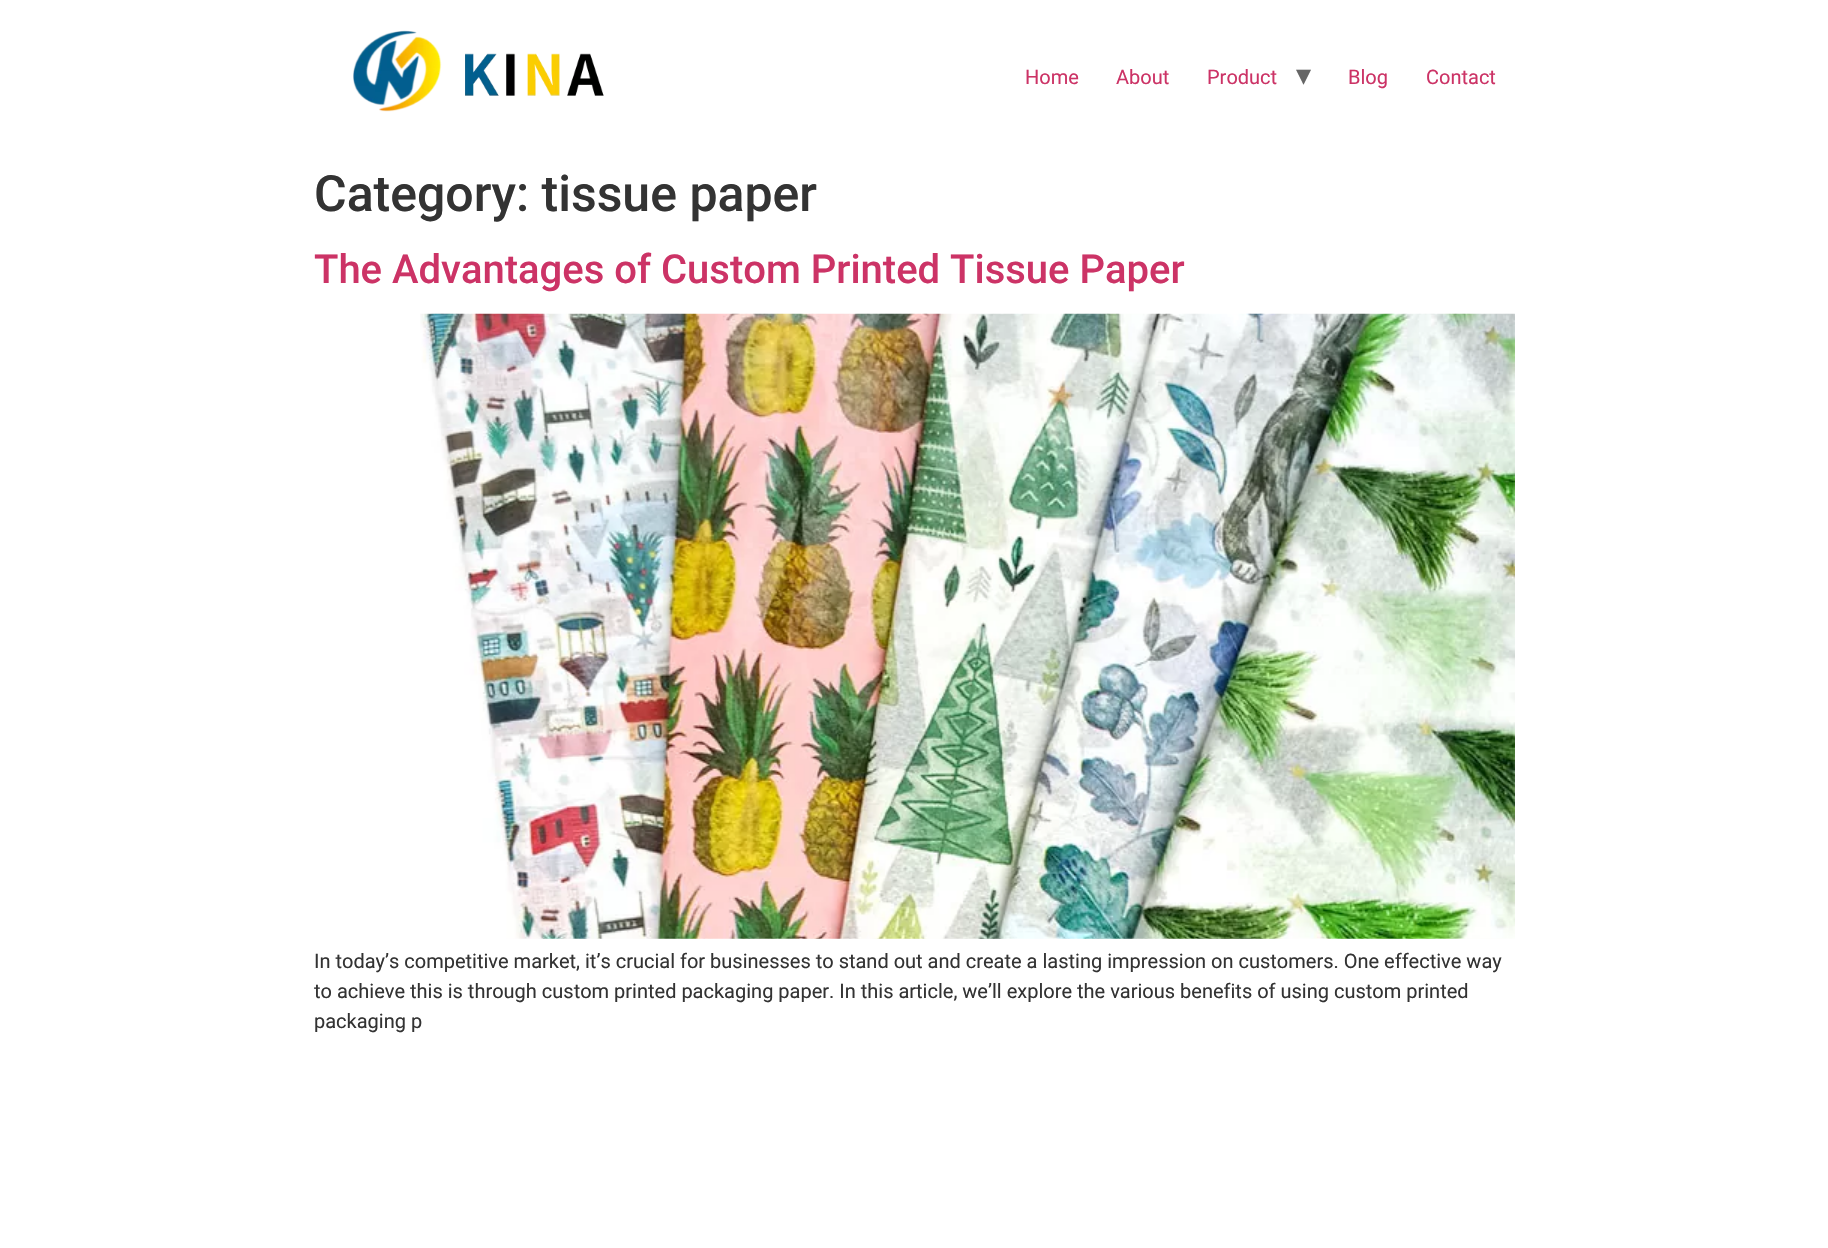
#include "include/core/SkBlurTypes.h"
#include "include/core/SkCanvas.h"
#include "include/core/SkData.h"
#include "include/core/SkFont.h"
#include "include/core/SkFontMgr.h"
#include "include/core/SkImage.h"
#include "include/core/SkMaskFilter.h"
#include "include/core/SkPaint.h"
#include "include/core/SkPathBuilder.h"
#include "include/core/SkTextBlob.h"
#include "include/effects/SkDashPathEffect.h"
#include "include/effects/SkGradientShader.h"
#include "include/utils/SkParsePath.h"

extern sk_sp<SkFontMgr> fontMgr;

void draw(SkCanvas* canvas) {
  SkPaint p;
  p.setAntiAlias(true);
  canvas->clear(SK_ColorWHITE);
  canvas->drawImageRect(SkImages::DeferredFromEncodedData(SkData::MakeFromFileName("images/1.png")), SkRect::MakeLTRB(353, 30, 604, 112), SkSamplingOptions());
  canvas->drawImageRect(SkImages::DeferredFromEncodedData(SkData::MakeFromFileName("images/2.png")), SkRect::MakeLTRB(420, 313, 1515, 939), SkSamplingOptions());
  SkFont font1(fontMgr->matchFamilyStyle("Roboto", SkFontStyle::Normal()), 20);
  font1.setSubpixel(true);
  p.setColor(SkColorSetRGB(204, 51, 102));
  canvas->drawString("Home", 1025, 84, font1, p);
  canvas->drawString("About", 1116, 84, font1, p);
  canvas->drawString("Product", 1207, 84, font1, p);
  SkFont font2(fontMgr->matchFamilyStyle("DejaVu Sans", SkFontStyle::Normal()), 30);
  font2.setSubpixel(true);
  p.setColor(SkColorSetRGB(102, 102, 102));
  canvas->drawString("▾", 1296, 85, font2, p);
  p.setColor(SkColorSetRGB(204, 51, 102));
  canvas->drawString("Blog", 1348, 84, font1, p);
  canvas->drawString("Contact", 1426, 84, font1, p);
  SkFont font3(fontMgr->matchFamilyStyle("Roboto", SkFontStyle(500, SkFontStyle::kNormal_Width, SkFontStyle::kUpright_Slant)), 50);
  font3.setSubpixel(true);
  p.setColor(SkColorSetRGB(51, 51, 51));
  canvas->drawString("Category: tissue paper", 314, 211, font3, p);
  SkFont font4(fontMgr->matchFamilyStyle("Roboto", SkFontStyle(500, SkFontStyle::kNormal_Width, SkFontStyle::kUpright_Slant)), 40);
  font4.setSubpixel(true);
  p.setColor(SkColorSetRGB(204, 51, 102));
  canvas->drawString("The Advantages of Custom Printed Tissue Paper", 314, 283, font4, p);
  p.setColor(SkColorSetRGB(51, 51, 51));
  canvas->drawString("In today’s competitive market, it’s crucial for businesses to stand out and create a lasting impression on customers. One effective way", 314, 968, font1, p);
  canvas->drawString("to achieve this is through custom printed packaging paper. In this article, we’ll explore the various benefits of using custom printed", 314, 998, font1, p);
  canvas->drawString("packaging p", 314, 1028, font1, p);
}
